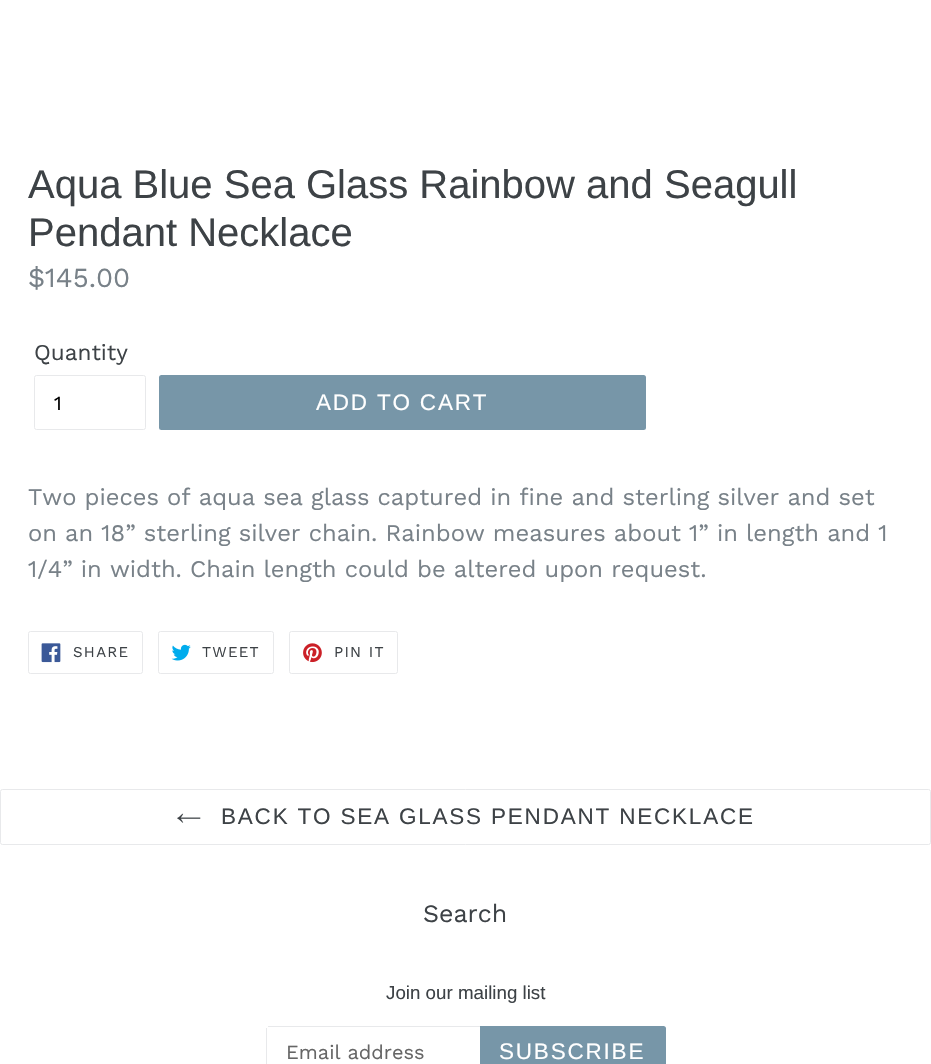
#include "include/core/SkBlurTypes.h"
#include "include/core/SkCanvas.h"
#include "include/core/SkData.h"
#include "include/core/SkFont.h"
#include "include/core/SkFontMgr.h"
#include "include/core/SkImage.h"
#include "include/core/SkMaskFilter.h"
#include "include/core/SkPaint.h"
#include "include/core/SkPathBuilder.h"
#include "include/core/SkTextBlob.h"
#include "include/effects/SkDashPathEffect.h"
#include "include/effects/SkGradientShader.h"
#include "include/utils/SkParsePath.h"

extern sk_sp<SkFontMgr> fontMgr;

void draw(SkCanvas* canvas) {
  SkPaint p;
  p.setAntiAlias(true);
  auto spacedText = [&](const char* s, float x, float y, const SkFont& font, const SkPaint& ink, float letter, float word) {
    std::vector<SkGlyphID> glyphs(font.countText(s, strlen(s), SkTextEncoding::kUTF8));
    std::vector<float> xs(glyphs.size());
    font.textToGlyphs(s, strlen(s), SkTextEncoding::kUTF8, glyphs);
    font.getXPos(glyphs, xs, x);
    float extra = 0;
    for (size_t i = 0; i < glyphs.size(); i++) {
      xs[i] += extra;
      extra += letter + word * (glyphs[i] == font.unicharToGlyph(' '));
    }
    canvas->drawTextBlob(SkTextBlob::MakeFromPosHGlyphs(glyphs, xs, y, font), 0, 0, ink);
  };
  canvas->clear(SK_ColorWHITE);
  p.setStyle(SkPaint::kStroke_Style);
  p.setStrokeWidth(1);
  p.setColor(SkColorSetRGB(232, 233, 235));
  canvas->drawRoundRect(SkRect::MakeLTRB(34.5f, 375.5f, 145.5f, 429.5f), 2, 2, p);
  p.setStyle(SkPaint::kFill_Style);
  p.setColor(SkColorSetRGB(119, 150, 168));
  canvas->drawRoundRect(SkRect::MakeLTRB(159, 375, 646, 430), 2.5f, 2.5f, p);
  p.setStyle(SkPaint::kStroke_Style);
  p.setColor(SkColorSetRGB(232, 233, 235));
  canvas->drawRoundRect(SkRect::MakeLTRB(28.5f, 631.5f, 142.5f, 673.5f), 2, 2, p);
  canvas->drawImageRect(SkImages::DeferredFromEncodedData(SkData::MakeFromFileName("images/1.png")), SkRect::MakeLTRB(41, 643, 61, 663), SkSamplingOptions());
  canvas->drawRoundRect(SkRect::MakeLTRB(158.5f, 631.5f, 273.5f, 673.5f), 2, 2, p);
  canvas->drawImageRect(SkImages::DeferredFromEncodedData(SkData::MakeFromFileName("images/2.png")), SkRect::MakeLTRB(171, 644, 191, 661), SkSamplingOptions());
  canvas->drawRoundRect(SkRect::MakeLTRB(289.5f, 631.5f, 397.5f, 673.5f), 2, 2, p);
  canvas->drawImageRect(SkImages::DeferredFromEncodedData(SkData::MakeFromFileName("images/3.png")), SkRect::MakeLTRB(303, 643, 322, 663), SkSamplingOptions());
  canvas->drawRoundRect(SkRect::MakeLTRB(0.5f, 789.5f, 930.5f, 844.5f), 2, 2, p);
  canvas->drawImageRect(SkImages::DeferredFromEncodedData(SkData::MakeFromFileName("images/4.png")), SkRect::MakeLTRB(177, 813, 201, 823), SkSamplingOptions());
  p.setStyle(SkPaint::kFill_Style);
  canvas->drawRect(SkRect::MakeLTRB(268, 1026, 480, 1027), p);
  canvas->drawRect(SkRect::MakeLTRB(266, 1028, 267, 1064), p);
  p.setColor(SkColorSetRGB(119, 150, 168));
  canvas->drawPath(SkPathBuilder().moveTo(480, 1026).lineTo(663.5f, 1026).cubicTo(665, 1026, 666, 1027, 666, 1028.5f).lineTo(666, 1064.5f).cubicTo(666, 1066, 665, 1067, 663.5f, 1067).lineTo(480, 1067).close().detach(), p);
  SkFont font1(fontMgr->matchFamilyStyle("Liberation Sans", SkFontStyle::Normal()), 40);
  font1.setSubpixel(true);
  p.setColor(SkColorSetRGB(61, 66, 70));
  canvas->drawString("Aqua Blue Sea Glass Rainbow and Seagull", 28, 198, font1, p);
  canvas->drawString("Pendant Necklace", 28, 246, font1, p);
  SkFont font2(fontMgr->matchFamilyStyle("Work Sans", SkFontStyle::Normal()), 27.5f);
  font2.setSubpixel(true);
  p.setColor(SkColorSetRGB(120, 129, 136));
  canvas->drawString("$145.00", 28, 287, font2, p);
  SkFont font3(fontMgr->matchFamilyStyle("Work Sans", SkFontStyle::Normal()), 22.5f);
  font3.setSubpixel(true);
  p.setColor(SkColorSetRGB(61, 66, 70));
  canvas->drawString("Quantity", 34, 360, font3, p);
  SkFont font4(fontMgr->matchFamilyStyle("Work Sans", SkFontStyle::Normal()), 20);
  font4.setSubpixel(true);
  p.setColor(SK_ColorBLACK);
  canvas->drawString("1", 54, 410, font4, p);
  SkFont font5(fontMgr->matchFamilyStyle("Liberation Sans", SkFontStyle::Normal()), 22.5f);
  font5.setSubpixel(true);
  p.setColor(SK_ColorWHITE);
  spacedText("ADD TO CART", 316, 410, font5, p, 1.8f, 0);
  SkFont font6(fontMgr->matchFamilyStyle("Work Sans", SkFontStyle::Normal()), 23.75f);
  font6.setSubpixel(true);
  p.setColor(SkColorSetRGB(120, 129, 136));
  canvas->drawString("Two pieces of aqua sea glass captured in fine and sterling silver and set", 28, 505, font6, p);
  canvas->drawString("on an 18” sterling silver chain. Rainbow measures about 1” in length and 1", 28, 541, font6, p);
  canvas->drawString("1/4” in width. Chain length could be altered upon request.", 28, 577, font6, p);
  SkFont font7(fontMgr->matchFamilyStyle("Work Sans", SkFontStyle::Normal()), 15);
  font7.setSubpixel(true);
  p.setColor(SkColorSetRGB(61, 66, 70));
  spacedText("SHARE", 73, 657, font7, p, 1.25f, 0);
  spacedText("TWEET", 202, 657, font7, p, 1.25f, 0);
  spacedText("PIN IT", 334, 657, font7, p, 1.25f, 0);
  spacedText("BACK TO SEA GLASS PENDANT NECKLACE", 221, 824, font5, p, 1.8f, 0);
  SkFont font8(fontMgr->matchFamilyStyle("Work Sans", SkFontStyle::Normal()), 25);
  font8.setSubpixel(true);
  canvas->drawString("Search", 423, 922, font8, p);
  SkFont font9(fontMgr->matchFamilyStyle("Liberation Sans", SkFontStyle::Normal()), 18.75f);
  font9.setSubpixel(true);
  canvas->drawString("Join our mailing list", 386, 999, font9, p);
  p.setColor(SkColorSetRGB(102, 102, 102));
  canvas->drawString("Email address", 286, 1059, font4, p);
  p.setColor(SK_ColorWHITE);
  spacedText("SUBSCRIBE", 499, 1059, font5, p, 1.8f, 0);
}
